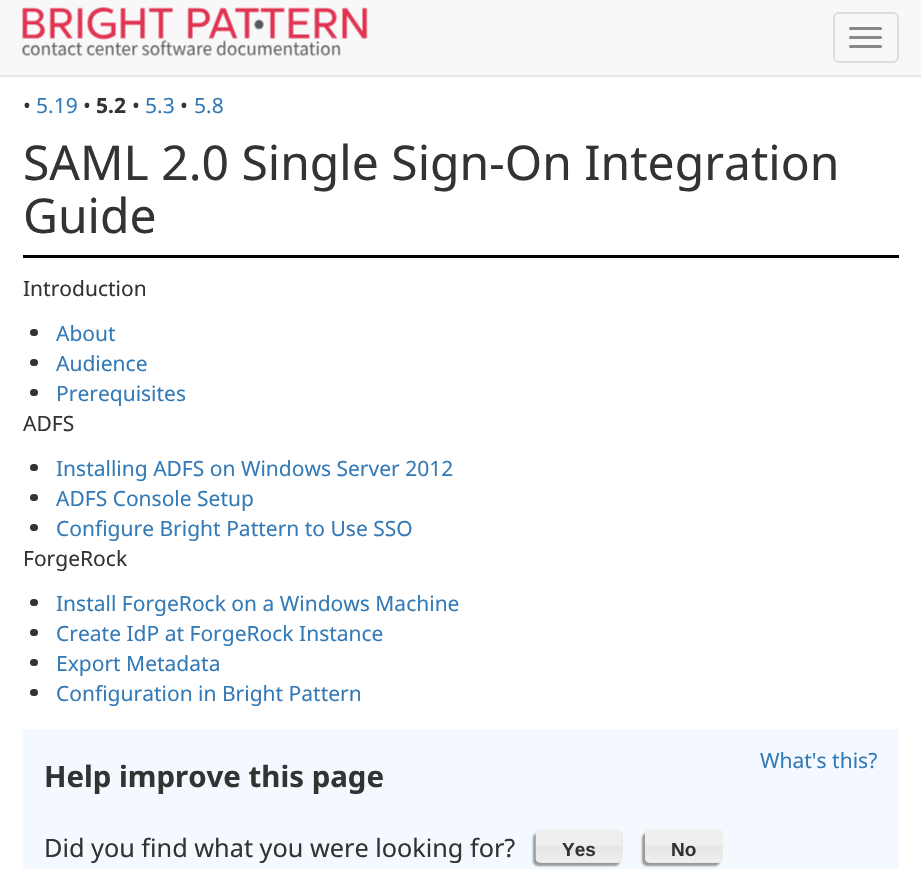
#include "include/core/SkBlurTypes.h"
#include "include/core/SkCanvas.h"
#include "include/core/SkData.h"
#include "include/core/SkFont.h"
#include "include/core/SkFontMgr.h"
#include "include/core/SkImage.h"
#include "include/core/SkMaskFilter.h"
#include "include/core/SkPaint.h"
#include "include/core/SkPathBuilder.h"
#include "include/core/SkTextBlob.h"
#include "include/effects/SkDashPathEffect.h"
#include "include/effects/SkGradientShader.h"
#include "include/utils/SkParsePath.h"

extern sk_sp<SkFontMgr> fontMgr;

void draw(SkCanvas* canvas) {
  SkPaint p;
  p.setAntiAlias(true);
  canvas->clear(SK_ColorWHITE);
  p.setColor(SkColorSetRGB(248, 248, 248));
  canvas->drawRect(SkRect::MakeLTRB(0, 0, 921, 75), p);
  p.setColor(SkColorSetRGB(231, 231, 231));
  canvas->drawRect(SkRect::MakeLTRB(0, 75, 921, 77), p);
  canvas->drawImageRect(SkImages::DeferredFromEncodedData(SkData::MakeFromFileName("images/1.png")), SkRect::MakeLTRB(22, 7, 368, 56), SkSamplingOptions());
  p.setStyle(SkPaint::kStroke_Style);
  p.setStrokeWidth(2);
  p.setColor(SkColorSetRGB(221, 221, 221));
  canvas->drawRoundRect(SkRect::MakeLTRB(834, 13, 898, 62), 5, 5, p);
  p.setStyle(SkPaint::kFill_Style);
  p.setColor(SkColorSetRGB(136, 136, 136));
  canvas->drawRoundRect(SkRect::MakeLTRB(849, 27, 882, 30), 1.5f, 1.5f, p);
  canvas->drawRoundRect(SkRect::MakeLTRB(849, 36, 882, 39), 1.5f, 1.5f, p);
  canvas->drawRoundRect(SkRect::MakeLTRB(849, 45, 882, 48), 1.5f, 1.5f, p);
  p.setColor(SK_ColorBLACK);
  canvas->drawRect(SkRect::MakeLTRB(23, 255, 899, 258), p);
  p.setColor(SkColorSetRGB(51, 51, 51));
  canvas->drawRoundRect(SkRect::MakeLTRB(30, 329, 38, 336), 3.5f, 3.5f, p);
  canvas->drawRoundRect(SkRect::MakeLTRB(30, 359, 38, 366), 3.5f, 3.5f, p);
  canvas->drawRoundRect(SkRect::MakeLTRB(30, 389, 38, 396), 3.5f, 3.5f, p);
  canvas->drawRoundRect(SkRect::MakeLTRB(30, 464, 38, 471), 3.5f, 3.5f, p);
  canvas->drawRoundRect(SkRect::MakeLTRB(30, 494, 38, 501), 3.5f, 3.5f, p);
  canvas->drawRoundRect(SkRect::MakeLTRB(30, 524, 38, 531), 3.5f, 3.5f, p);
  canvas->drawRoundRect(SkRect::MakeLTRB(30, 599, 38, 606), 3.5f, 3.5f, p);
  canvas->drawRoundRect(SkRect::MakeLTRB(30, 629, 38, 636), 3.5f, 3.5f, p);
  canvas->drawRoundRect(SkRect::MakeLTRB(30, 659, 38, 666), 3.5f, 3.5f, p);
  canvas->drawRoundRect(SkRect::MakeLTRB(30, 689, 38, 696), 3.5f, 3.5f, p);
  p.setColor(SkColorSetRGB(243, 249, 255));
  canvas->drawRect(SkRect::MakeLTRB(23, 729, 899, 869), p);
  p.setColor(SkColorSetRGB(153, 153, 153));
  p.setMaskFilter(SkMaskFilter::MakeBlur(kNormal_SkBlurStyle, 1));
  canvas->drawRoundRect(SkRect::MakeLTRB(533, 833, 620, 866), 5, 5, p);
  p.setMaskFilter(nullptr);
  p.setColor(SkColorSetRGB(230, 230, 230));
  canvas->drawRoundRect(SkRect::MakeLTRB(536, 830, 623, 863), 5, 5, p);
  canvas->drawImageRect(SkImages::DeferredFromEncodedData(SkData::MakeFromFileName("images/2.png")), SkRect::MakeLTRB(535, 829, 622, 863), SkSamplingOptions());
  p.setColor(SkColorSetRGB(153, 153, 153));
  p.setMaskFilter(SkMaskFilter::MakeBlur(kNormal_SkBlurStyle, 1));
  canvas->drawRoundRect(SkRect::MakeLTRB(642, 833, 720, 866), 5, 5, p);
  p.setMaskFilter(nullptr);
  p.setColor(SkColorSetRGB(230, 230, 230));
  canvas->drawRoundRect(SkRect::MakeLTRB(645, 830, 723, 863), 5, 5, p);
  canvas->drawImageRect(SkImages::DeferredFromEncodedData(SkData::MakeFromFileName("images/3.png")), SkRect::MakeLTRB(645, 829, 723, 863), SkSamplingOptions());
  SkFont font1(fontMgr->matchFamilyStyle("Noto Sans", SkFontStyle::Normal()), 21);
  font1.setSubpixel(true);
  p.setColor(SkColorSetRGB(51, 51, 51));
  canvas->drawString("•", 23, 113, font1, p);
  p.setColor(SkColorSetRGB(51, 122, 183));
  canvas->drawString("5.19", 36, 113, font1, p);
  p.setColor(SkColorSetRGB(51, 51, 51));
  canvas->drawString("•", 83, 113, font1, p);
  SkFont font2(fontMgr->matchFamilyStyle("Noto Sans", SkFontStyle::Bold()), 21);
  font2.setSubpixel(true);
  canvas->drawString("5.2", 96, 113, font2, p);
  canvas->drawString("•", 132, 113, font1, p);
  p.setColor(SkColorSetRGB(51, 122, 183));
  canvas->drawString("5.3", 145, 113, font1, p);
  p.setColor(SkColorSetRGB(51, 51, 51));
  canvas->drawString("•", 180, 113, font1, p);
  p.setColor(SkColorSetRGB(51, 122, 183));
  canvas->drawString("5.8", 194, 113, font1, p);
  SkFont font3(fontMgr->matchFamilyStyle("Noto Sans", SkFontStyle::Normal()), 48);
  font3.setSubpixel(true);
  p.setColor(SkColorSetRGB(51, 51, 51));
  canvas->drawString("SAML 2.0 Single Sign-On Integration", 23, 180, font3, p);
  canvas->drawString("Guide", 23, 233, font3, p);
  canvas->drawString("Introduction", 23, 296, font1, p);
  p.setColor(SkColorSetRGB(51, 122, 183));
  canvas->drawString("About", 56, 341, font1, p);
  canvas->drawString("Audience", 56, 371, font1, p);
  canvas->drawString("Prerequisites", 56, 401, font1, p);
  p.setColor(SkColorSetRGB(51, 51, 51));
  canvas->drawString("ADFS", 23, 431, font1, p);
  p.setColor(SkColorSetRGB(51, 122, 183));
  canvas->drawString("Installing ADFS on Windows Server 2012", 56, 476, font1, p);
  canvas->drawString("ADFS Console Setup", 56, 506, font1, p);
  canvas->drawString("Configure Bright Pattern to Use SSO", 56, 536, font1, p);
  p.setColor(SkColorSetRGB(51, 51, 51));
  canvas->drawString("ForgeRock", 23, 566, font1, p);
  p.setColor(SkColorSetRGB(51, 122, 183));
  canvas->drawString("Install ForgeRock on a Windows Machine", 56, 611, font1, p);
  canvas->drawString("Create IdP at ForgeRock Instance", 56, 641, font1, p);
  canvas->drawString("Export Metadata", 56, 671, font1, p);
  canvas->drawString("Configuration in Bright Pattern", 56, 701, font1, p);
  canvas->drawString("What's this?", 760, 768, font1, p);
  SkFont font4(fontMgr->matchFamilyStyle("Noto Sans", SkFontStyle::Bold()), 29.4f);
  font4.setSubpixel(true);
  p.setColor(SkColorSetRGB(51, 51, 51));
  canvas->drawString("Help improve this page", 44, 787, font4, p);
  SkFont font5(fontMgr->matchFamilyStyle("Noto Sans", SkFontStyle::Normal()), 25.25f);
  font5.setSubpixel(true);
  canvas->drawString("Did you find what you were looking for?", 44, 857, font5, p);
  SkFont font6(fontMgr->matchFamilyStyle("Liberation Sans", SkFontStyle::Bold()), 19);
  font6.setSubpixel(true);
  canvas->drawString("Yes", 562, 856, font6, p);
  canvas->drawString("No", 671, 856, font6, p);
}
